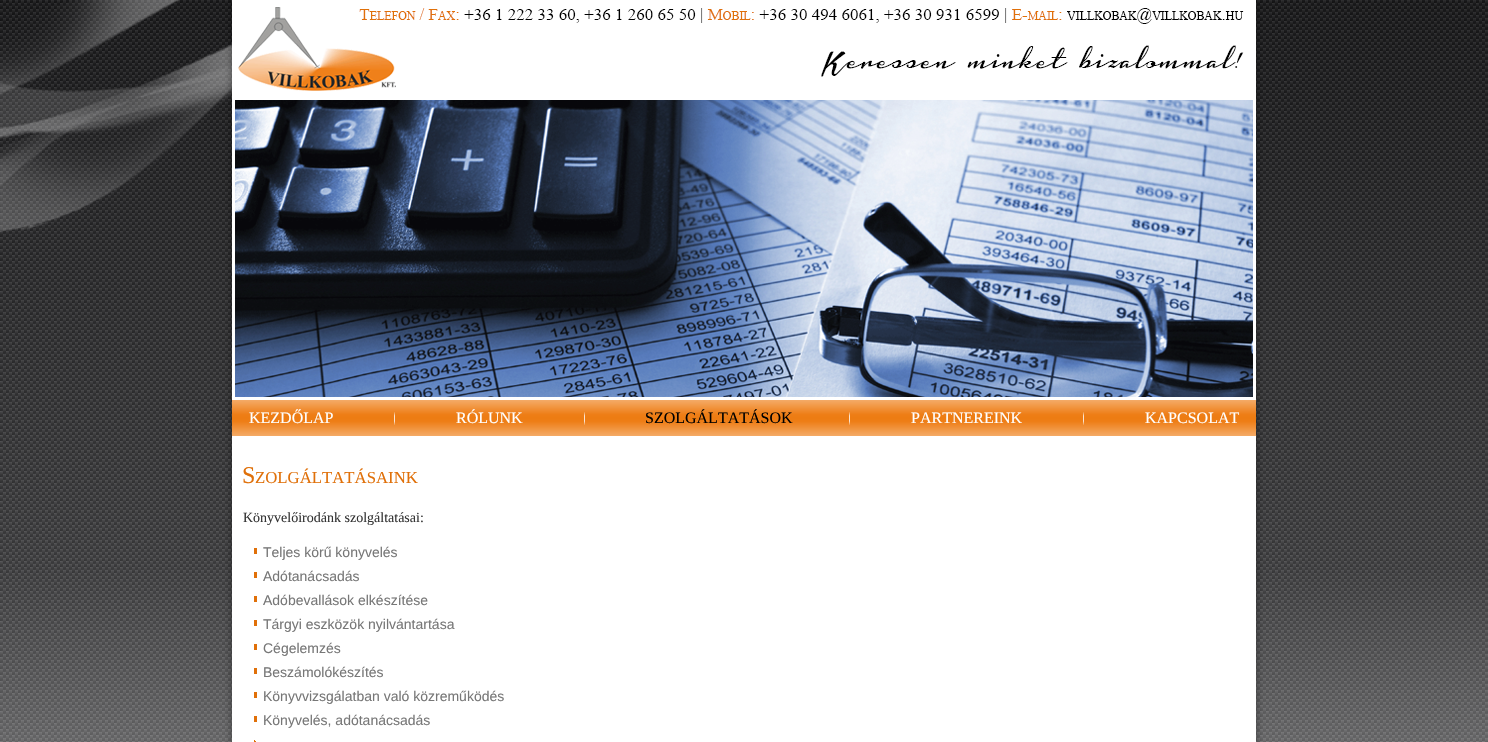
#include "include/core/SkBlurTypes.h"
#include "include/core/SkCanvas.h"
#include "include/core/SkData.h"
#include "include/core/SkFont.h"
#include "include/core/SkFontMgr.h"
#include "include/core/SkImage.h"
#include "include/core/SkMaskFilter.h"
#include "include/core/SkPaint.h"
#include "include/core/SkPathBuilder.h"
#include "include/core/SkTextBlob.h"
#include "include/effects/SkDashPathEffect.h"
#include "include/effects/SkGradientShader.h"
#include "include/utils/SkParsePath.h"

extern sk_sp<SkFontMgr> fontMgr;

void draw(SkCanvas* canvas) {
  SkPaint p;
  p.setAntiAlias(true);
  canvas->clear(SK_ColorWHITE);
  canvas->drawImageRect(SkImages::DeferredFromEncodedData(SkData::MakeFromFileName("images/1.png")), SkRect::MakeLTRB(0, 0, 1488, 742), SkSamplingOptions());
  p.setColor(SkColorSetARGB(51, 0, 0, 0));
  p.setMaskFilter(SkMaskFilter::MakeBlur(kNormal_SkBlurStyle, 2.5f));
  canvas->drawRect(SkRect::MakeLTRB(229, -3, 1259, 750), p);
  p.setMaskFilter(nullptr);
  p.setColor(SK_ColorWHITE);
  canvas->drawRect(SkRect::MakeLTRB(232, 0, 1256, 742), p);
  canvas->drawImageRect(SkImages::DeferredFromEncodedData(SkData::MakeFromFileName("images/2.png")), SkRect::MakeLTRB(235, 7, 1253, 397), SkSamplingOptions());
  {
    const SkColor colors[] = {SkColorSetRGB(244, 171, 103), SkColorSetRGB(238, 126, 23), SkColorSetRGB(237, 124, 18), SkColorSetRGB(238, 126, 23), SkColorSetRGB(244, 171, 103)};
    const float stops[] = {0, 0.4f, 0.5f, 0.6f, 1};
    const SkPoint ends[] = {{744, 400}, {744, 436}};
    p.setShader(SkGradientShader::MakeLinear(ends, colors, stops, 5, SkTileMode::kClamp));
    p.setAlpha(255);
  }
  canvas->drawRect(SkRect::MakeLTRB(232, 400, 1256, 436), p);
  canvas->drawImageRect(SkImages::DeferredFromEncodedData(SkData::MakeFromFileName("images/3.png")), SkRect::MakeLTRB(394, 412, 395, 425), SkSamplingOptions());
  canvas->drawImageRect(SkImages::DeferredFromEncodedData(SkData::MakeFromFileName("images/3.png")), SkRect::MakeLTRB(584, 412, 585, 425), SkSamplingOptions());
  canvas->drawImageRect(SkImages::DeferredFromEncodedData(SkData::MakeFromFileName("images/3.png")), SkRect::MakeLTRB(849, 412, 850, 425), SkSamplingOptions());
  canvas->drawImageRect(SkImages::DeferredFromEncodedData(SkData::MakeFromFileName("images/3.png")), SkRect::MakeLTRB(1083, 412, 1084, 425), SkSamplingOptions());
  p.setShader(nullptr);
  p.setColor(SkColorSetRGB(224, 112, 9));
  canvas->drawRect(SkRect::MakeLTRB(254, 548, 257, 554), p);
  canvas->drawRect(SkRect::MakeLTRB(254, 572, 257, 578), p);
  canvas->drawRect(SkRect::MakeLTRB(254, 596, 257, 602), p);
  canvas->drawRect(SkRect::MakeLTRB(254, 620, 257, 626), p);
  canvas->drawRect(SkRect::MakeLTRB(254, 644, 257, 650), p);
  canvas->drawRect(SkRect::MakeLTRB(254, 668, 257, 674), p);
  canvas->drawRect(SkRect::MakeLTRB(254, 692, 257, 698), p);
  canvas->drawRect(SkRect::MakeLTRB(254, 716, 257, 722), p);
  canvas->drawImageRect(SkImages::DeferredFromEncodedData(SkData::MakeFromFileName("images/4.png")), SkRect::MakeLTRB(254, 740, 256, 742), SkSamplingOptions());
  SkFont font1(fontMgr->matchFamilyStyle("Liberation Serif", SkFontStyle::Normal()), 16);
  font1.setSubpixel(true);
  p.setColor(SK_ColorWHITE);
  canvas->drawString("KEZDŐLAP", 249, 423, font1, p);
  canvas->drawString("RÓLUNK", 456, 423, font1, p);
  p.setColor(SK_ColorBLACK);
  canvas->drawString("SZOLGÁLTATÁSOK", 645, 423, font1, p);
  p.setColor(SK_ColorWHITE);
  canvas->drawString("PARTNEREINK", 911, 423, font1, p);
  canvas->drawString("KAPCSOLAT", 1145, 423, font1, p);
  SkFont font2(fontMgr->matchFamilyStyle("Liberation Serif", SkFontStyle::Normal()), 24);
  font2.setSubpixel(true);
  p.setColor(SkColorSetRGB(224, 112, 9));
  canvas->drawString("S", 242, 483, font2, p);
  SkFont font3(fontMgr->matchFamilyStyle("Liberation Serif", SkFontStyle::Normal()), 16.75f);
  font3.setSubpixel(true);
  canvas->drawString("ZOLGÁLTATÁSAINK", 255, 483, font3, p);
  SkFont font4(fontMgr->matchFamilyStyle("Liberation Serif", SkFontStyle::Normal()), 14);
  font4.setSubpixel(true);
  p.setColor(SkColorSetRGB(51, 51, 51));
  canvas->drawString("Könyvelőirodánk szolgáltatásai:", 243, 522, font4, p);
  SkFont font5(fontMgr->matchFamilyStyle("Liberation Sans", SkFontStyle::Normal()), 14);
  font5.setSubpixel(true);
  p.setColor(SkColorSetRGB(119, 119, 119));
  canvas->drawString("Teljes körű könyvelés", 263, 557, font5, p);
  canvas->drawString("Adótanácsadás", 263, 581, font5, p);
  canvas->drawString("Adóbevallások elkészítése", 263, 605, font5, p);
  canvas->drawString("Tárgyi eszközök nyilvántartása", 263, 629, font5, p);
  canvas->drawString("Cégelemzés", 263, 653, font5, p);
  canvas->drawString("Beszámolókészítés", 263, 677, font5, p);
  canvas->drawString("Könyvvizsgálatban való közreműködés", 263, 701, font5, p);
  canvas->drawString("Könyvelés, adótanácsadás", 263, 725, font5, p);
}
